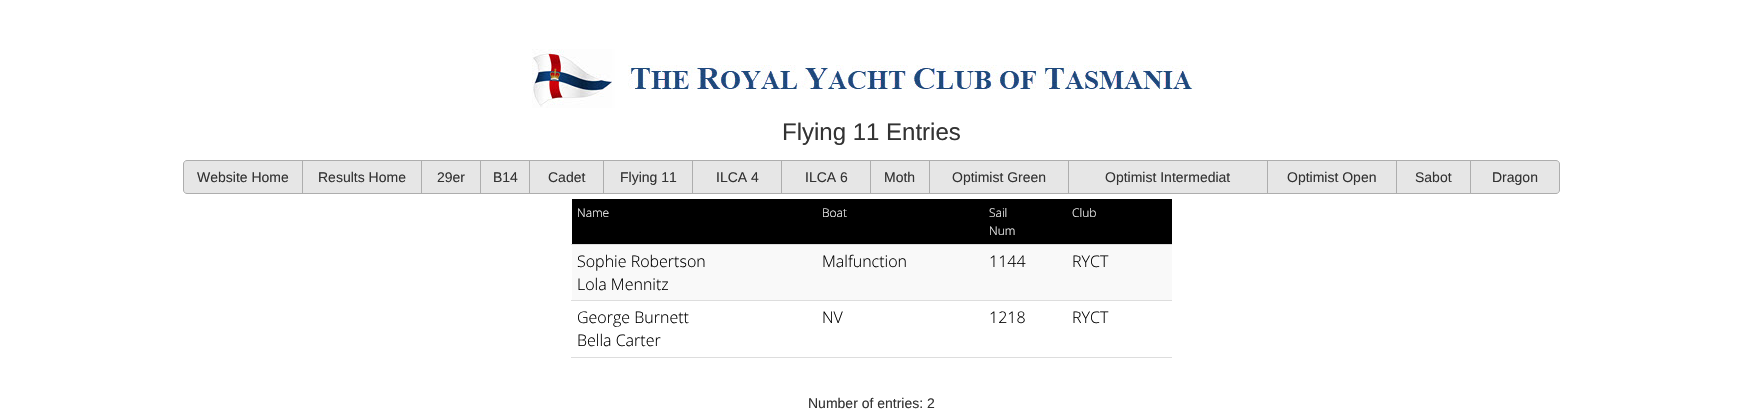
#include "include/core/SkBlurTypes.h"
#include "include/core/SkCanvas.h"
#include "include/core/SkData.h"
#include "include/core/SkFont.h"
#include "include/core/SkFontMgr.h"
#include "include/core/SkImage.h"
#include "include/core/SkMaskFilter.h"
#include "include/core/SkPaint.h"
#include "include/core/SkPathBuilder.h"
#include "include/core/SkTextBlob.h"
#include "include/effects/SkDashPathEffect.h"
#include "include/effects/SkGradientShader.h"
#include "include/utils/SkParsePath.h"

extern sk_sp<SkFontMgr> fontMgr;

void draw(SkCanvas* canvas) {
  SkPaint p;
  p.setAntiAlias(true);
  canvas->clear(SK_ColorWHITE);
  canvas->drawImageRect(SkImages::DeferredFromEncodedData(SkData::MakeFromFileName("images/1.png")), SkRect::MakeLTRB(532, 49, 1196, 108), SkSamplingOptions());
  p.setColor(SkColorSetRGB(230, 230, 230));
  canvas->drawPath(SkPathBuilder().moveTo(187, 160.5f).lineTo(302.5f, 160.5f).lineTo(302.5f, 193.5f).lineTo(187, 193.5f).cubicTo(185, 193.5f, 183.5f, 192, 183.5f, 190).lineTo(183.5f, 164).cubicTo(183.5f, 162, 185, 160.5f, 187, 160.5f).close().detach(), p);
  p.setStyle(SkPaint::kStroke_Style);
  p.setStrokeWidth(1);
  p.setColor(SkColorSetRGB(173, 173, 173));
  canvas->drawPath(SkPathBuilder().moveTo(187, 160.5f).lineTo(302.5f, 160.5f).lineTo(302.5f, 193.5f).lineTo(187, 193.5f).cubicTo(185, 193.5f, 183.5f, 192, 183.5f, 190).lineTo(183.5f, 164).cubicTo(183.5f, 162, 185, 160.5f, 187, 160.5f).close().detach(), p);
  p.setStyle(SkPaint::kFill_Style);
  p.setColor(SkColorSetRGB(230, 230, 230));
  canvas->drawRect(SkRect::MakeLTRB(302.5f, 160.5f, 421.5f, 193.5f), p);
  p.setStyle(SkPaint::kStroke_Style);
  p.setColor(SkColorSetRGB(173, 173, 173));
  canvas->drawRect(SkRect::MakeLTRB(302.5f, 160.5f, 421.5f, 193.5f), p);
  p.setStyle(SkPaint::kFill_Style);
  p.setColor(SkColorSetRGB(230, 230, 230));
  canvas->drawRect(SkRect::MakeLTRB(421.5f, 160.5f, 480.5f, 193.5f), p);
  p.setStyle(SkPaint::kStroke_Style);
  p.setColor(SkColorSetRGB(173, 173, 173));
  canvas->drawRect(SkRect::MakeLTRB(421.5f, 160.5f, 480.5f, 193.5f), p);
  p.setStyle(SkPaint::kFill_Style);
  p.setColor(SkColorSetRGB(230, 230, 230));
  canvas->drawRect(SkRect::MakeLTRB(480.5f, 160.5f, 529.5f, 193.5f), p);
  p.setStyle(SkPaint::kStroke_Style);
  p.setColor(SkColorSetRGB(173, 173, 173));
  canvas->drawRect(SkRect::MakeLTRB(480.5f, 160.5f, 529.5f, 193.5f), p);
  p.setStyle(SkPaint::kFill_Style);
  p.setColor(SkColorSetRGB(230, 230, 230));
  canvas->drawRect(SkRect::MakeLTRB(529.5f, 160.5f, 603.5f, 193.5f), p);
  p.setStyle(SkPaint::kStroke_Style);
  p.setColor(SkColorSetRGB(173, 173, 173));
  canvas->drawRect(SkRect::MakeLTRB(529.5f, 160.5f, 603.5f, 193.5f), p);
  p.setStyle(SkPaint::kFill_Style);
  p.setColor(SkColorSetRGB(230, 230, 230));
  canvas->drawRect(SkRect::MakeLTRB(603.5f, 160.5f, 692.5f, 193.5f), p);
  p.setStyle(SkPaint::kStroke_Style);
  p.setColor(SkColorSetRGB(173, 173, 173));
  canvas->drawRect(SkRect::MakeLTRB(603.5f, 160.5f, 692.5f, 193.5f), p);
  p.setStyle(SkPaint::kFill_Style);
  p.setColor(SkColorSetRGB(230, 230, 230));
  canvas->drawRect(SkRect::MakeLTRB(692.5f, 160.5f, 781.5f, 193.5f), p);
  p.setStyle(SkPaint::kStroke_Style);
  p.setColor(SkColorSetRGB(173, 173, 173));
  canvas->drawRect(SkRect::MakeLTRB(692.5f, 160.5f, 781.5f, 193.5f), p);
  p.setStyle(SkPaint::kFill_Style);
  p.setColor(SkColorSetRGB(230, 230, 230));
  canvas->drawRect(SkRect::MakeLTRB(781.5f, 160.5f, 870.5f, 193.5f), p);
  p.setStyle(SkPaint::kStroke_Style);
  p.setColor(SkColorSetRGB(173, 173, 173));
  canvas->drawRect(SkRect::MakeLTRB(781.5f, 160.5f, 870.5f, 193.5f), p);
  p.setStyle(SkPaint::kFill_Style);
  p.setColor(SkColorSetRGB(230, 230, 230));
  canvas->drawRect(SkRect::MakeLTRB(870.5f, 160.5f, 929.5f, 193.5f), p);
  p.setStyle(SkPaint::kStroke_Style);
  p.setColor(SkColorSetRGB(173, 173, 173));
  canvas->drawRect(SkRect::MakeLTRB(870.5f, 160.5f, 929.5f, 193.5f), p);
  p.setStyle(SkPaint::kFill_Style);
  p.setColor(SkColorSetRGB(230, 230, 230));
  canvas->drawRect(SkRect::MakeLTRB(929.5f, 160.5f, 1068.5f, 193.5f), p);
  p.setStyle(SkPaint::kStroke_Style);
  p.setColor(SkColorSetRGB(173, 173, 173));
  canvas->drawRect(SkRect::MakeLTRB(929.5f, 160.5f, 1068.5f, 193.5f), p);
  p.setStyle(SkPaint::kFill_Style);
  p.setColor(SkColorSetRGB(230, 230, 230));
  canvas->drawRect(SkRect::MakeLTRB(1068.5f, 160.5f, 1267.5f, 193.5f), p);
  p.setStyle(SkPaint::kStroke_Style);
  p.setColor(SkColorSetRGB(173, 173, 173));
  canvas->drawRect(SkRect::MakeLTRB(1068.5f, 160.5f, 1267.5f, 193.5f), p);
  p.setStyle(SkPaint::kFill_Style);
  p.setColor(SkColorSetRGB(230, 230, 230));
  canvas->drawRect(SkRect::MakeLTRB(1267.5f, 160.5f, 1396.5f, 193.5f), p);
  p.setStyle(SkPaint::kStroke_Style);
  p.setColor(SkColorSetRGB(173, 173, 173));
  canvas->drawRect(SkRect::MakeLTRB(1267.5f, 160.5f, 1396.5f, 193.5f), p);
  p.setStyle(SkPaint::kFill_Style);
  p.setColor(SkColorSetRGB(230, 230, 230));
  canvas->drawRect(SkRect::MakeLTRB(1396.5f, 160.5f, 1470.5f, 193.5f), p);
  p.setStyle(SkPaint::kStroke_Style);
  p.setColor(SkColorSetRGB(173, 173, 173));
  canvas->drawRect(SkRect::MakeLTRB(1396.5f, 160.5f, 1470.5f, 193.5f), p);
  p.setStyle(SkPaint::kFill_Style);
  p.setColor(SkColorSetRGB(230, 230, 230));
  canvas->drawPath(SkPathBuilder().moveTo(1470.5f, 160.5f).lineTo(1556, 160.5f).cubicTo(1558, 160.5f, 1559.5f, 162, 1559.5f, 164).lineTo(1559.5f, 190).cubicTo(1559.5f, 192, 1558, 193.5f, 1556, 193.5f).lineTo(1470.5f, 193.5f).close().detach(), p);
  p.setStyle(SkPaint::kStroke_Style);
  p.setColor(SkColorSetRGB(173, 173, 173));
  canvas->drawPath(SkPathBuilder().moveTo(1470.5f, 160.5f).lineTo(1556, 160.5f).cubicTo(1558, 160.5f, 1559.5f, 162, 1559.5f, 164).lineTo(1559.5f, 190).cubicTo(1559.5f, 192, 1558, 193.5f, 1556, 193.5f).lineTo(1470.5f, 193.5f).close().detach(), p);
  p.setStyle(SkPaint::kFill_Style);
  p.setColor(SK_ColorBLACK);
  canvas->drawRect(SkRect::MakeLTRB(572, 199, 1172, 244), p);
  p.setColor(SkColorSetRGB(249, 249, 249));
  canvas->drawRect(SkRect::MakeLTRB(572, 245, 1172, 300), p);
  p.setColor(SkColorSetRGB(221, 221, 221));
  canvas->drawRect(SkRect::MakeLTRB(571, 244, 1172, 245), p);
  canvas->drawRect(SkRect::MakeLTRB(571, 300, 1172, 301), p);
  canvas->drawRect(SkRect::MakeLTRB(571, 357, 1172, 358), p);
  SkFont font1(fontMgr->matchFamilyStyle("Liberation Sans", SkFontStyle::Normal()), 24);
  font1.setSubpixel(true);
  p.setColor(SkColorSetRGB(51, 51, 51));
  canvas->drawString("Flying 11 Entries", 782, 140, font1, p);
  SkFont font2(fontMgr->matchFamilyStyle("Liberation Sans", SkFontStyle::Normal()), 14);
  font2.setSubpixel(true);
  canvas->drawString("Website Home", 197, 182, font2, p);
  canvas->drawString("Results Home", 318, 182, font2, p);
  canvas->drawString("29er", 437, 182, font2, p);
  canvas->drawString("B14", 493, 182, font2, p);
  canvas->drawString("Cadet", 548, 182, font2, p);
  canvas->drawString("Flying 11", 620, 182, font2, p);
  canvas->drawString("ILCA 4", 716, 182, font2, p);
  canvas->drawString("ILCA 6", 805, 182, font2, p);
  canvas->drawString("Moth", 884, 182, font2, p);
  canvas->drawString("Optimist Green", 952, 182, font2, p);
  canvas->drawString("Optimist Intermediat", 1105, 182, font2, p);
  canvas->drawString("Optimist Open", 1287, 182, font2, p);
  canvas->drawString("Sabot", 1415, 182, font2, p);
  canvas->drawString("Dragon", 1492, 182, font2, p);
  SkFont font3(fontMgr->matchFamilyStyle("Open Sans", SkFontStyle(300, SkFontStyle::kNormal_Width, SkFontStyle::kUpright_Slant)), 12);
  font3.setSubpixel(true);
  p.setColor(SK_ColorWHITE);
  canvas->drawString("Name", 577, 217, font3, p);
  canvas->drawString("Boat", 822, 217, font3, p);
  canvas->drawString("Sail", 989, 217, font3, p);
  canvas->drawString("Num", 989, 235, font3, p);
  canvas->drawString("Club", 1072, 217, font3, p);
  SkFont font4(fontMgr->matchFamilyStyle("Open Sans", SkFontStyle(300, SkFontStyle::kNormal_Width, SkFontStyle::kUpright_Slant)), 16);
  font4.setSubpixel(true);
  p.setColor(SK_ColorBLACK);
  canvas->drawString("Sophie Robertson", 577, 267, font4, p);
  canvas->drawString("Lola Mennitz", 577, 290, font4, p);
  canvas->drawString("Malfunction", 822, 267, font4, p);
  canvas->drawString("1144", 989, 267, font4, p);
  canvas->drawString("RYCT", 1072, 267, font4, p);
  canvas->drawString("George Burnett", 577, 323, font4, p);
  canvas->drawString("Bella Carter", 577, 346, font4, p);
  canvas->drawString("NV", 822, 323, font4, p);
  canvas->drawString("1218", 989, 323, font4, p);
  canvas->drawString("RYCT", 1072, 323, font4, p);
  p.setColor(SkColorSetRGB(51, 51, 51));
  canvas->drawString("Number of entries: 2", 808, 408, font2, p);
}
